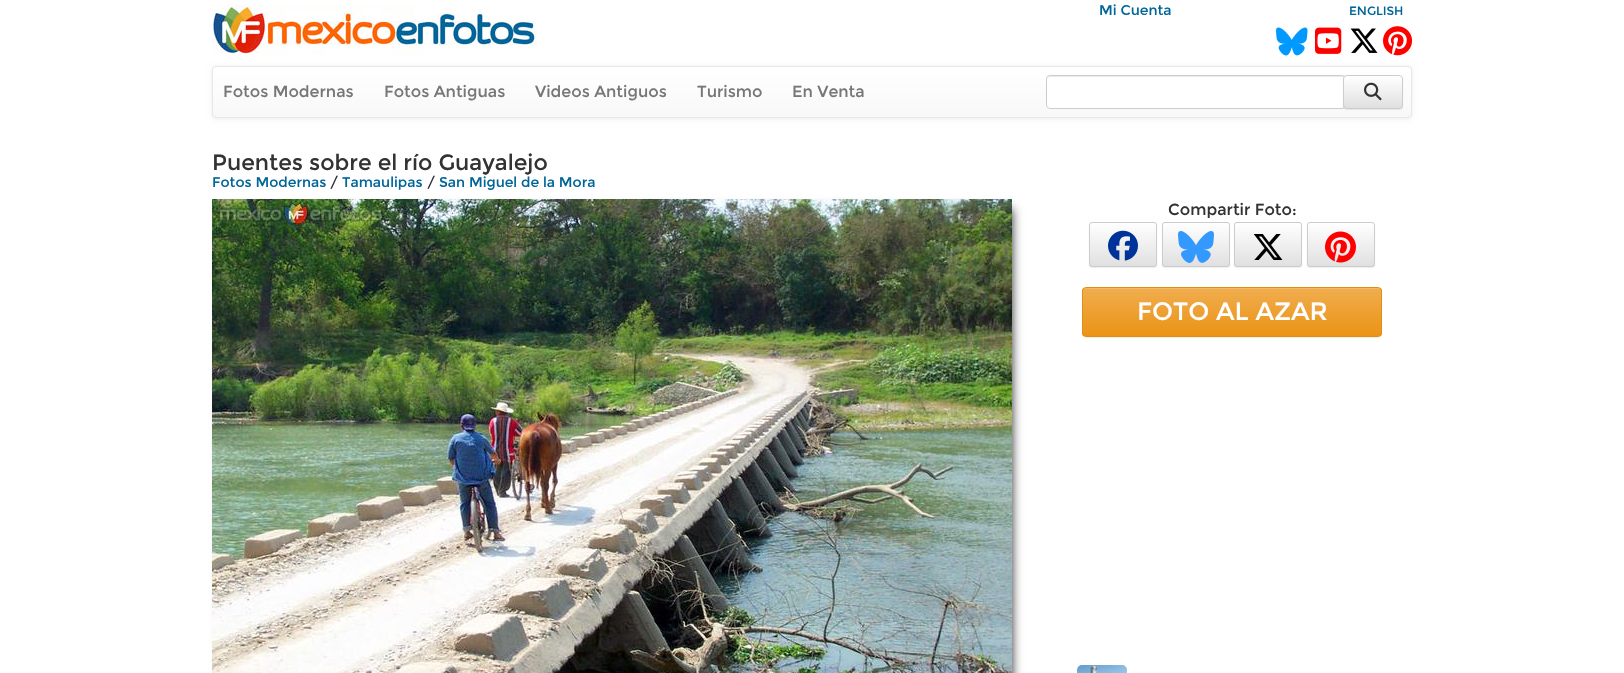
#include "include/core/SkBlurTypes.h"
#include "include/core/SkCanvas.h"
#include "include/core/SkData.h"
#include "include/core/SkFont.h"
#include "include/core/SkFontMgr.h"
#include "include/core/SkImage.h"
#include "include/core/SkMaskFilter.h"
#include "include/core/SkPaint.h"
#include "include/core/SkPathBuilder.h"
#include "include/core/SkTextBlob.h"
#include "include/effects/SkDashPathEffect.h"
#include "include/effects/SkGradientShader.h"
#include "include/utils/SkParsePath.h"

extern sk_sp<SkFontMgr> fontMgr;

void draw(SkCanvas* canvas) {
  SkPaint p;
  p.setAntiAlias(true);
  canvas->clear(SK_ColorWHITE);
  canvas->drawImageRect(SkImages::DeferredFromEncodedData(SkData::MakeFromFileName("images/1.png")), SkRect::MakeLTRB(212, 5, 537, 55), SkSamplingOptions());
  canvas->drawImageRect(SkImages::DeferredFromEncodedData(SkData::MakeFromFileName("images/2.png")), SkRect::MakeLTRB(1276, 27, 1308, 56), SkSamplingOptions());
  canvas->drawImageRect(SkImages::DeferredFromEncodedData(SkData::MakeFromFileName("images/3.png")), SkRect::MakeLTRB(1315, 27, 1342, 54), SkSamplingOptions());
  canvas->drawImageRect(SkImages::DeferredFromEncodedData(SkData::MakeFromFileName("images/4.png")), SkRect::MakeLTRB(1350, 28, 1378, 53), SkSamplingOptions());
  canvas->drawImageRect(SkImages::DeferredFromEncodedData(SkData::MakeFromFileName("images/5.png")), SkRect::MakeLTRB(1383, 26, 1413, 56), SkSamplingOptions());
  p.setColor(SkColorSetARGB(18, 0, 0, 0));
  p.setMaskFilter(SkMaskFilter::MakeBlur(kNormal_SkBlurStyle, 2.5f));
  canvas->drawRoundRect(SkRect::MakeLTRB(212, 67, 1412, 119), 4, 4, p);
  p.setMaskFilter(nullptr);
  canvas->save();
  canvas->clipPath(SkPathBuilder().moveTo(216, 66).lineTo(1408, 66).cubicTo(1410, 66, 1412, 68, 1412, 70).lineTo(1412, 114).cubicTo(1412, 116, 1410, 118, 1408, 118).lineTo(216, 118).cubicTo(214, 118, 212, 116, 212, 114).lineTo(212, 70).cubicTo(212, 68, 214, 66, 216, 66).close().detach(), true);
  {
    const SkColor colors[] = {SK_ColorWHITE, SkColorSetRGB(248, 248, 248)};
    const float stops[] = {0, 1};
    const SkPoint ends[] = {{812, 67}, {812, 117}};
    p.setShader(SkGradientShader::MakeLinear(ends, colors, stops, 2, SkTileMode::kClamp));
    p.setAlpha(255);
  }
  canvas->drawRect(SkRect::MakeLTRB(212, 67, 1412, 117), p);
  canvas->restore();
  p.setStyle(SkPaint::kStroke_Style);
  p.setStrokeWidth(1);
  p.setShader(nullptr);
  p.setColor(SkColorSetRGB(231, 231, 231));
  canvas->drawRoundRect(SkRect::MakeLTRB(212.5f, 66.5f, 1411.5f, 117.5f), 3.5f, 3.5f, p);
  p.setStyle(SkPaint::kFill_Style);
  p.setColor(SK_ColorWHITE);
  canvas->drawRoundRect(SkRect::MakeLTRB(1046, 75, 1346, 109), 4, 4, p);
  p.setColor(SkColorSetRGB(236, 236, 236));
  canvas->drawPath(SkPathBuilder().moveTo(1050, 77).lineTo(1342, 77).cubicTo(1344, 77, 1345, 78, 1345, 80).lineTo(1344, 77).lineTo(1343, 76).lineTo(1050, 76).cubicTo(1048, 76, 1047, 78, 1047, 80).cubicTo(1047, 78, 1048, 77, 1050, 77).close().detach(), p);
  p.setStyle(SkPaint::kStroke_Style);
  p.setColor(SkColorSetRGB(204, 204, 204));
  canvas->drawRoundRect(SkRect::MakeLTRB(1046.5f, 75.5f, 1345.5f, 108.5f), 3.5f, 3.5f, p);
  p.setStyle(SkPaint::kFill_Style);
  p.setColor(SkColorSetARGB(18, 0, 0, 0));
  p.setMaskFilter(SkMaskFilter::MakeBlur(kNormal_SkBlurStyle, 0.5f));
  canvas->drawRoundRect(SkRect::MakeLTRB(1343, 76, 1403, 110), 4, 4, p);
  p.setMaskFilter(nullptr);
  canvas->save();
  canvas->clipPath(SkPathBuilder().moveTo(1347, 75).lineTo(1399, 75).cubicTo(1401, 75, 1403, 77, 1403, 79).lineTo(1403, 105).cubicTo(1403, 107, 1401, 109, 1399, 109).lineTo(1347, 109).cubicTo(1345, 109, 1343, 107, 1343, 105).lineTo(1343, 79).cubicTo(1343, 77, 1345, 75, 1347, 75).close().detach(), true);
  {
    const SkColor colors[] = {SK_ColorWHITE, SkColorSetRGB(224, 224, 224)};
    const float stops[] = {0, 1};
    const SkPoint ends[] = {{1373, 76}, {1373, 108}};
    p.setShader(SkGradientShader::MakeLinear(ends, colors, stops, 2, SkTileMode::kClamp));
    p.setAlpha(255);
  }
  canvas->drawRect(SkRect::MakeLTRB(1343, 76, 1403, 108), p);
  canvas->restore();
  p.setStyle(SkPaint::kStroke_Style);
  p.setShader(nullptr);
  p.setColor(SkColorSetRGB(204, 204, 204));
  canvas->drawRoundRect(SkRect::MakeLTRB(1343.5f, 75.5f, 1402.5f, 108.5f), 3.5f, 3.5f, p);
  canvas->drawImageRect(SkImages::DeferredFromEncodedData(SkData::MakeFromFileName("images/6.png")), SkRect::MakeLTRB(1364, 82, 1382, 101), SkSamplingOptions());
  p.setStyle(SkPaint::kFill_Style);
  p.setColor(SkColorSetARGB(219, 0, 0, 0));
  p.setMaskFilter(SkMaskFilter::MakeBlur(kNormal_SkBlurStyle, 5));
  canvas->drawRect(SkRect::MakeLTRB(222, 209, 1012, 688), p);
  p.setMaskFilter(nullptr);
  canvas->drawImageRect(SkImages::DeferredFromEncodedData(SkData::MakeFromFileName("images/7.png")), SkRect::MakeLTRB(212, 199, 1012, 673), SkSamplingOptions());
  p.setColor(SkColorSetARGB(18, 0, 0, 0));
  p.setMaskFilter(SkMaskFilter::MakeBlur(kNormal_SkBlurStyle, 0.5f));
  canvas->drawRoundRect(SkRect::MakeLTRB(1089, 223, 1157, 268), 3, 3, p);
  p.setMaskFilter(nullptr);
  canvas->save();
  canvas->clipPath(SkPathBuilder().moveTo(1092, 222).lineTo(1154, 222).cubicTo(1155.5f, 222, 1157, 223.5f, 1157, 225).lineTo(1157, 264).cubicTo(1157, 265.5f, 1155.5f, 267, 1154, 267).lineTo(1092, 267).cubicTo(1090.5f, 267, 1089, 265.5f, 1089, 264).lineTo(1089, 225).cubicTo(1089, 223.5f, 1090.5f, 222, 1092, 222).close().detach(), true);
  {
    const SkColor colors[] = {SK_ColorWHITE, SkColorSetRGB(224, 224, 224)};
    const float stops[] = {0, 1};
    const SkPoint ends[] = {{1123, 223}, {1123, 266}};
    p.setShader(SkGradientShader::MakeLinear(ends, colors, stops, 2, SkTileMode::kClamp));
    p.setAlpha(255);
  }
  canvas->drawRect(SkRect::MakeLTRB(1089, 223, 1157, 266), p);
  canvas->restore();
  p.setStyle(SkPaint::kStroke_Style);
  p.setShader(nullptr);
  p.setColor(SkColorSetRGB(204, 204, 204));
  canvas->drawRoundRect(SkRect::MakeLTRB(1089.5f, 222.5f, 1156.5f, 266.5f), 2.5f, 2.5f, p);
  canvas->drawImageRect(SkImages::DeferredFromEncodedData(SkData::MakeFromFileName("images/8.png")), SkRect::MakeLTRB(1108, 230, 1138, 261), SkSamplingOptions());
  p.setStyle(SkPaint::kFill_Style);
  p.setColor(SkColorSetARGB(18, 0, 0, 0));
  p.setMaskFilter(SkMaskFilter::MakeBlur(kNormal_SkBlurStyle, 0.5f));
  canvas->drawRoundRect(SkRect::MakeLTRB(1162, 223, 1230, 268), 3, 3, p);
  p.setMaskFilter(nullptr);
  canvas->save();
  canvas->clipPath(SkPathBuilder().moveTo(1165, 222).lineTo(1227, 222).cubicTo(1228.5f, 222, 1230, 223.5f, 1230, 225).lineTo(1230, 264).cubicTo(1230, 265.5f, 1228.5f, 267, 1227, 267).lineTo(1165, 267).cubicTo(1163.5f, 267, 1162, 265.5f, 1162, 264).lineTo(1162, 225).cubicTo(1162, 223.5f, 1163.5f, 222, 1165, 222).close().detach(), true);
  {
    const SkColor colors[] = {SK_ColorWHITE, SkColorSetRGB(224, 224, 224)};
    const float stops[] = {0, 1};
    const SkPoint ends[] = {{1196, 223}, {1196, 266}};
    p.setShader(SkGradientShader::MakeLinear(ends, colors, stops, 2, SkTileMode::kClamp));
    p.setAlpha(255);
  }
  canvas->drawRect(SkRect::MakeLTRB(1162, 223, 1230, 266), p);
  canvas->restore();
  p.setStyle(SkPaint::kStroke_Style);
  p.setShader(nullptr);
  p.setColor(SkColorSetRGB(204, 204, 204));
  canvas->drawRoundRect(SkRect::MakeLTRB(1162.5f, 222.5f, 1229.5f, 266.5f), 2.5f, 2.5f, p);
  canvas->drawImageRect(SkImages::DeferredFromEncodedData(SkData::MakeFromFileName("images/9.png")), SkRect::MakeLTRB(1178, 231, 1214, 263), SkSamplingOptions());
  p.setStyle(SkPaint::kFill_Style);
  p.setColor(SkColorSetARGB(18, 0, 0, 0));
  p.setMaskFilter(SkMaskFilter::MakeBlur(kNormal_SkBlurStyle, 0.5f));
  canvas->drawRoundRect(SkRect::MakeLTRB(1234, 223, 1302, 268), 3, 3, p);
  p.setMaskFilter(nullptr);
  canvas->save();
  canvas->clipPath(SkPathBuilder().moveTo(1237, 222).lineTo(1299, 222).cubicTo(1300.5f, 222, 1302, 223.5f, 1302, 225).lineTo(1302, 264).cubicTo(1302, 265.5f, 1300.5f, 267, 1299, 267).lineTo(1237, 267).cubicTo(1235.5f, 267, 1234, 265.5f, 1234, 264).lineTo(1234, 225).cubicTo(1234, 223.5f, 1235.5f, 222, 1237, 222).close().detach(), true);
  {
    const SkColor colors[] = {SK_ColorWHITE, SkColorSetRGB(224, 224, 224)};
    const float stops[] = {0, 1};
    const SkPoint ends[] = {{1268, 223}, {1268, 266}};
    p.setShader(SkGradientShader::MakeLinear(ends, colors, stops, 2, SkTileMode::kClamp));
    p.setAlpha(255);
  }
  canvas->drawRect(SkRect::MakeLTRB(1234, 223, 1302, 266), p);
  canvas->restore();
  p.setStyle(SkPaint::kStroke_Style);
  p.setShader(nullptr);
  p.setColor(SkColorSetRGB(204, 204, 204));
  canvas->drawRoundRect(SkRect::MakeLTRB(1234.5f, 222.5f, 1301.5f, 266.5f), 2.5f, 2.5f, p);
  canvas->drawImageRect(SkImages::DeferredFromEncodedData(SkData::MakeFromFileName("images/10.png")), SkRect::MakeLTRB(1253, 234, 1283, 260), SkSamplingOptions());
  p.setStyle(SkPaint::kFill_Style);
  p.setColor(SkColorSetARGB(18, 0, 0, 0));
  p.setMaskFilter(SkMaskFilter::MakeBlur(kNormal_SkBlurStyle, 0.5f));
  canvas->drawRoundRect(SkRect::MakeLTRB(1307, 223, 1375, 268), 3, 3, p);
  p.setMaskFilter(nullptr);
  canvas->save();
  canvas->clipPath(SkPathBuilder().moveTo(1310, 222).lineTo(1372, 222).cubicTo(1373.5f, 222, 1375, 223.5f, 1375, 225).lineTo(1375, 264).cubicTo(1375, 265.5f, 1373.5f, 267, 1372, 267).lineTo(1310, 267).cubicTo(1308.5f, 267, 1307, 265.5f, 1307, 264).lineTo(1307, 225).cubicTo(1307, 223.5f, 1308.5f, 222, 1310, 222).close().detach(), true);
  {
    const SkColor colors[] = {SK_ColorWHITE, SkColorSetRGB(224, 224, 224)};
    const float stops[] = {0, 1};
    const SkPoint ends[] = {{1341, 223}, {1341, 266}};
    p.setShader(SkGradientShader::MakeLinear(ends, colors, stops, 2, SkTileMode::kClamp));
    p.setAlpha(255);
  }
  canvas->drawRect(SkRect::MakeLTRB(1307, 223, 1375, 266), p);
  canvas->restore();
  p.setStyle(SkPaint::kStroke_Style);
  p.setShader(nullptr);
  p.setColor(SkColorSetRGB(204, 204, 204));
  canvas->drawRoundRect(SkRect::MakeLTRB(1307.5f, 222.5f, 1374.5f, 266.5f), 2.5f, 2.5f, p);
  canvas->drawImageRect(SkImages::DeferredFromEncodedData(SkData::MakeFromFileName("images/11.png")), SkRect::MakeLTRB(1325, 231, 1356, 263), SkSamplingOptions());
  p.setStyle(SkPaint::kFill_Style);
  p.setColor(SkColorSetARGB(18, 0, 0, 0));
  p.setMaskFilter(SkMaskFilter::MakeBlur(kNormal_SkBlurStyle, 0.5f));
  canvas->drawRoundRect(SkRect::MakeLTRB(1082, 288, 1382, 338), 4, 4, p);
  p.setMaskFilter(nullptr);
  canvas->save();
  canvas->clipPath(SkPathBuilder().moveTo(1086, 287).lineTo(1378, 287).cubicTo(1380, 287, 1382, 289, 1382, 291).lineTo(1382, 333).cubicTo(1382, 335, 1380, 337, 1378, 337).lineTo(1086, 337).cubicTo(1084, 337, 1082, 335, 1082, 333).lineTo(1082, 291).cubicTo(1082, 289, 1084, 287, 1086, 287).close().detach(), true);
  {
    const SkColor colors[] = {SkColorSetRGB(240, 173, 78), SkColorSetRGB(235, 147, 22)};
    const float stops[] = {0, 1};
    const SkPoint ends[] = {{1232, 288}, {1232, 336}};
    p.setShader(SkGradientShader::MakeLinear(ends, colors, stops, 2, SkTileMode::kClamp));
    p.setAlpha(255);
  }
  canvas->drawRect(SkRect::MakeLTRB(1082, 288, 1382, 336), p);
  canvas->restore();
  p.setShader(nullptr);
  p.setColor(SkColorSetRGB(242, 185, 104));
  canvas->drawPath(SkPathBuilder().moveTo(1086, 289).lineTo(1378, 289).cubicTo(1380, 289, 1381, 290, 1381, 292).lineTo(1380, 289).lineTo(1379, 288).lineTo(1086, 288).cubicTo(1084, 288, 1083, 290, 1083, 292).cubicTo(1083, 290, 1084, 289, 1086, 289).close().detach(), p);
  p.setStyle(SkPaint::kStroke_Style);
  p.setColor(SkColorSetRGB(227, 141, 19));
  canvas->drawRoundRect(SkRect::MakeLTRB(1082.5f, 287.5f, 1381.5f, 336.5f), 3.5f, 3.5f, p);
  canvas->drawImageRect(SkImages::DeferredFromEncodedData(SkData::MakeFromFileName("images/12.png")), SkRect::MakeLTRB(1077, 665, 1127, 673), SkSamplingOptions());
  SkFont font1(fontMgr->matchFamilyStyle("Montserrat", SkFontStyle::Normal()), 14);
  font1.setSubpixel(true);
  p.setStyle(SkPaint::kFill_Style);
  p.setColor(SkColorSetRGB(0, 102, 153));
  canvas->drawString("Mi Cuenta", 1099, 15, font1, p);
  SkFont font2(fontMgr->matchFamilyStyle("Montserrat", SkFontStyle::Normal()), 12);
  font2.setSubpixel(true);
  canvas->drawString("ENGLISH", 1349, 15, font2, p);
  SkFont font3(fontMgr->matchFamilyStyle("Montserrat", SkFontStyle::Normal()), 16);
  font3.setSubpixel(true);
  p.setColor(SkColorSetRGB(119, 119, 119));
  canvas->drawString("Fotos Modernas", 223, 97, font3, p);
  canvas->drawString("Fotos Antiguas", 384, 97, font3, p);
  canvas->drawString("Videos Antiguos", 535, 97, font3, p);
  canvas->drawString("Turismo", 697, 97, font3, p);
  canvas->drawString("En Venta", 792, 97, font3, p);
  SkFont font4(fontMgr->matchFamilyStyle("Montserrat", SkFontStyle::Normal()), 22);
  font4.setSubpixel(true);
  p.setColor(SkColorSetRGB(51, 51, 51));
  canvas->drawString("Puentes sobre el río Guayalejo", 212, 170, font4, p);
  p.setColor(SkColorSetRGB(0, 102, 153));
  canvas->drawString("Fotos Modernas", 212, 187, font1, p);
  p.setColor(SkColorSetRGB(51, 51, 51));
  canvas->drawString("/", 330, 187, font1, p);
  p.setColor(SkColorSetRGB(0, 102, 153));
  canvas->drawString("Tamaulipas", 342, 187, font1, p);
  p.setColor(SkColorSetRGB(51, 51, 51));
  canvas->drawString("/", 427, 187, font1, p);
  p.setColor(SkColorSetRGB(0, 102, 153));
  canvas->drawString("San Miguel de la Mora", 439, 187, font1, p);
  p.setColor(SkColorSetRGB(51, 51, 51));
  canvas->drawString("Compartir Foto:", 1168, 215, font3, p);
  SkFont font5(fontMgr->matchFamilyStyle("Montserrat", SkFontStyle::Normal()), 25);
  font5.setSubpixel(true);
  p.setColor(SK_ColorWHITE);
  canvas->drawString("FOTO AL AZAR", 1137, 320, font5, p);
}
